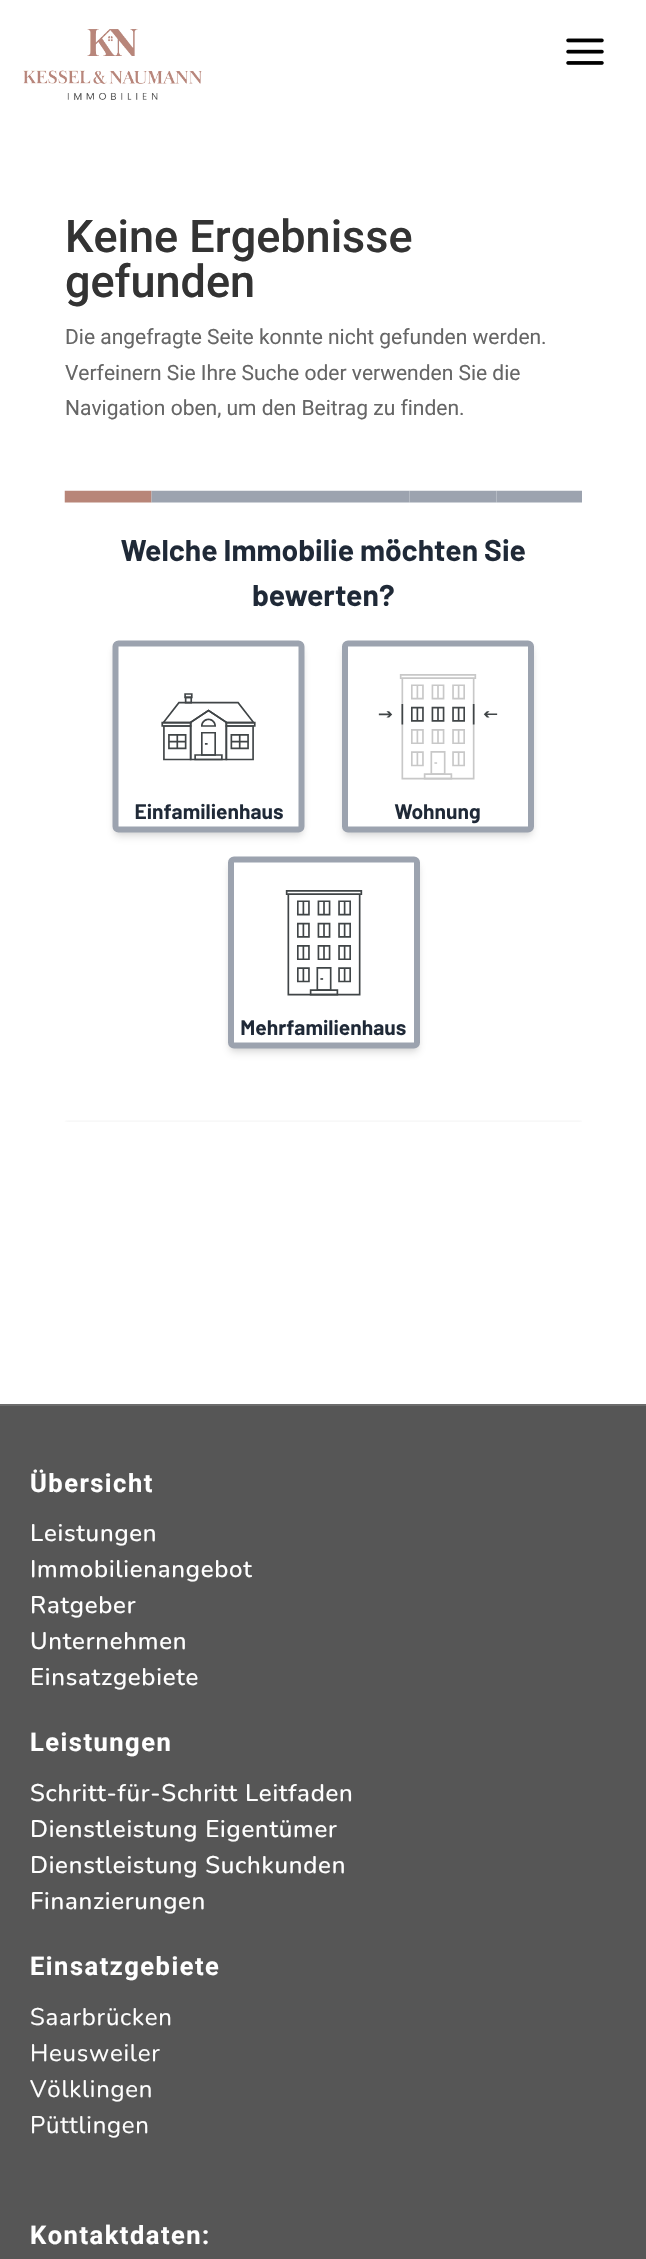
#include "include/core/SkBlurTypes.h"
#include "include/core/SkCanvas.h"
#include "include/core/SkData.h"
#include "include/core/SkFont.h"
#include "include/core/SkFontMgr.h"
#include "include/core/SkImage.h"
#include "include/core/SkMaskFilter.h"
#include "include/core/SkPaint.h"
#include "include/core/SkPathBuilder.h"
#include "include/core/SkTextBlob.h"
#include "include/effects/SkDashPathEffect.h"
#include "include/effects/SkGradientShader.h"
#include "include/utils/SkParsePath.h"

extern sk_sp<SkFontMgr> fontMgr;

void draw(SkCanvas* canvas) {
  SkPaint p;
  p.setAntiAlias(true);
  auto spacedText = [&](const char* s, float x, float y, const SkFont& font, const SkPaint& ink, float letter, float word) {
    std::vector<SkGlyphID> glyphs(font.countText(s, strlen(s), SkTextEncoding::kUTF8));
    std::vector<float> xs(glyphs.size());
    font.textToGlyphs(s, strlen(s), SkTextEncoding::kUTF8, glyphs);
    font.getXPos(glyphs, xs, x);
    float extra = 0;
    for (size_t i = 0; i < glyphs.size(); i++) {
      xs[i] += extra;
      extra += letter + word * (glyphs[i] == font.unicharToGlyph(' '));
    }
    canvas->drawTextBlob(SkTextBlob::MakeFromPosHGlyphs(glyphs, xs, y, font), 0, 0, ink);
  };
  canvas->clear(SK_ColorWHITE);
  canvas->drawImageRect(SkImages::DeferredFromEncodedData(SkData::MakeFromFileName("images/1.png")), SkRect::MakeLTRB(23, 29, 202, 100), SkSamplingOptions());
  canvas->drawImageRect(SkImages::DeferredFromEncodedData(SkData::MakeFromFileName("images/2.png")), SkRect::MakeLTRB(566, 38, 604, 65), SkSamplingOptions());
  canvas->drawImageRect(SkImages::DeferredFromEncodedData(SkData::MakeFromFileName("images/3.png")), SkRect::MakeLTRB(64, 490, 582, 1122), SkSamplingOptions());
  p.setColor(SkColorSetRGB(86, 86, 86));
  canvas->drawRect(SkRect::MakeLTRB(0, 1406, 646, 2259), p);
  p.setColor(SkColorSetRGB(108, 108, 108));
  canvas->drawRect(SkRect::MakeLTRB(0, 1404, 646, 1406), p);
  SkFont font1(fontMgr->matchFamilyStyle("Roboto", SkFontStyle(500, SkFontStyle::kNormal_Width, SkFontStyle::kUpright_Slant)), 45);
  font1.setSubpixel(true);
  p.setColor(SkColorSetRGB(51, 51, 51));
  canvas->drawString("Keine Ergebnisse", 65, 252, font1, p);
  canvas->drawString("gefunden", 65, 297, font1, p);
  SkFont font2(fontMgr->matchFamilyStyle("Roboto", SkFontStyle::Normal()), 21);
  font2.setSubpixel(true);
  p.setColor(SkColorSetRGB(102, 102, 102));
  canvas->drawString("Die angefragte Seite konnte nicht gefunden werden.", 65, 344, font2, p);
  canvas->drawString("Verfeinern Sie Ihre Suche oder verwenden Sie die", 65, 380, font2, p);
  canvas->drawString("Navigation oben, um den Beitrag zu finden.", 65, 415, font2, p);
  SkFont font3(fontMgr->matchFamilyStyle("Roboto", SkFontStyle::Bold()), 25.5f);
  font3.setSubpixel(true);
  p.setColor(SK_ColorWHITE);
  spacedText("Übersicht", 30, 1492, font3, p, 1.5f, 0);
  SkFont font4(fontMgr->matchFamilyStyle("Nunito", SkFontStyle(200, SkFontStyle::kNormal_Width, SkFontStyle::kUpright_Slant)), 24);
  font4.setSubpixel(true);
  spacedText("Leistungen", 30, 1541, font4, p, 0.75f, 0);
  spacedText("Immobilienangebot", 30, 1577, font4, p, 0.75f, 0);
  spacedText("Ratgeber", 30, 1613, font4, p, 0.75f, 0);
  spacedText("Unternehmen", 30, 1649, font4, p, 0.75f, 0);
  spacedText("Einsatzgebiete", 30, 1685, font4, p, 0.75f, 0);
  spacedText("Leistungen", 30, 1751, font3, p, 1.5f, 0);
  spacedText("Schritt-für-Schritt Leitfaden", 30, 1801, font4, p, 0.75f, 0);
  spacedText("Dienstleistung Eigentümer", 30, 1837, font4, p, 0.75f, 0);
  spacedText("Dienstleistung Suchkunden", 30, 1873, font4, p, 0.75f, 0);
  spacedText("Finanzierungen", 30, 1909, font4, p, 0.75f, 0);
  spacedText("Einsatzgebiete", 30, 1975, font3, p, 1.5f, 0);
  SkFont font5(fontMgr->matchFamilyStyle("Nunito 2", SkFontStyle(200, SkFontStyle::kNormal_Width, SkFontStyle::kUpright_Slant)), 24);
  font5.setSubpixel(true);
  spacedText("Saarbrücken", 30, 2025, font5, p, 0.75f, 0);
  spacedText("Heusweiler", 30, 2061, font5, p, 0.75f, 0);
  spacedText("Völklingen", 30, 2097, font5, p, 0.75f, 0);
  spacedText("Püttlingen", 30, 2133, font5, p, 0.75f, 0);
  spacedText("Kontaktdaten:", 30, 2244, font3, p, 1.5f, 0);
}
